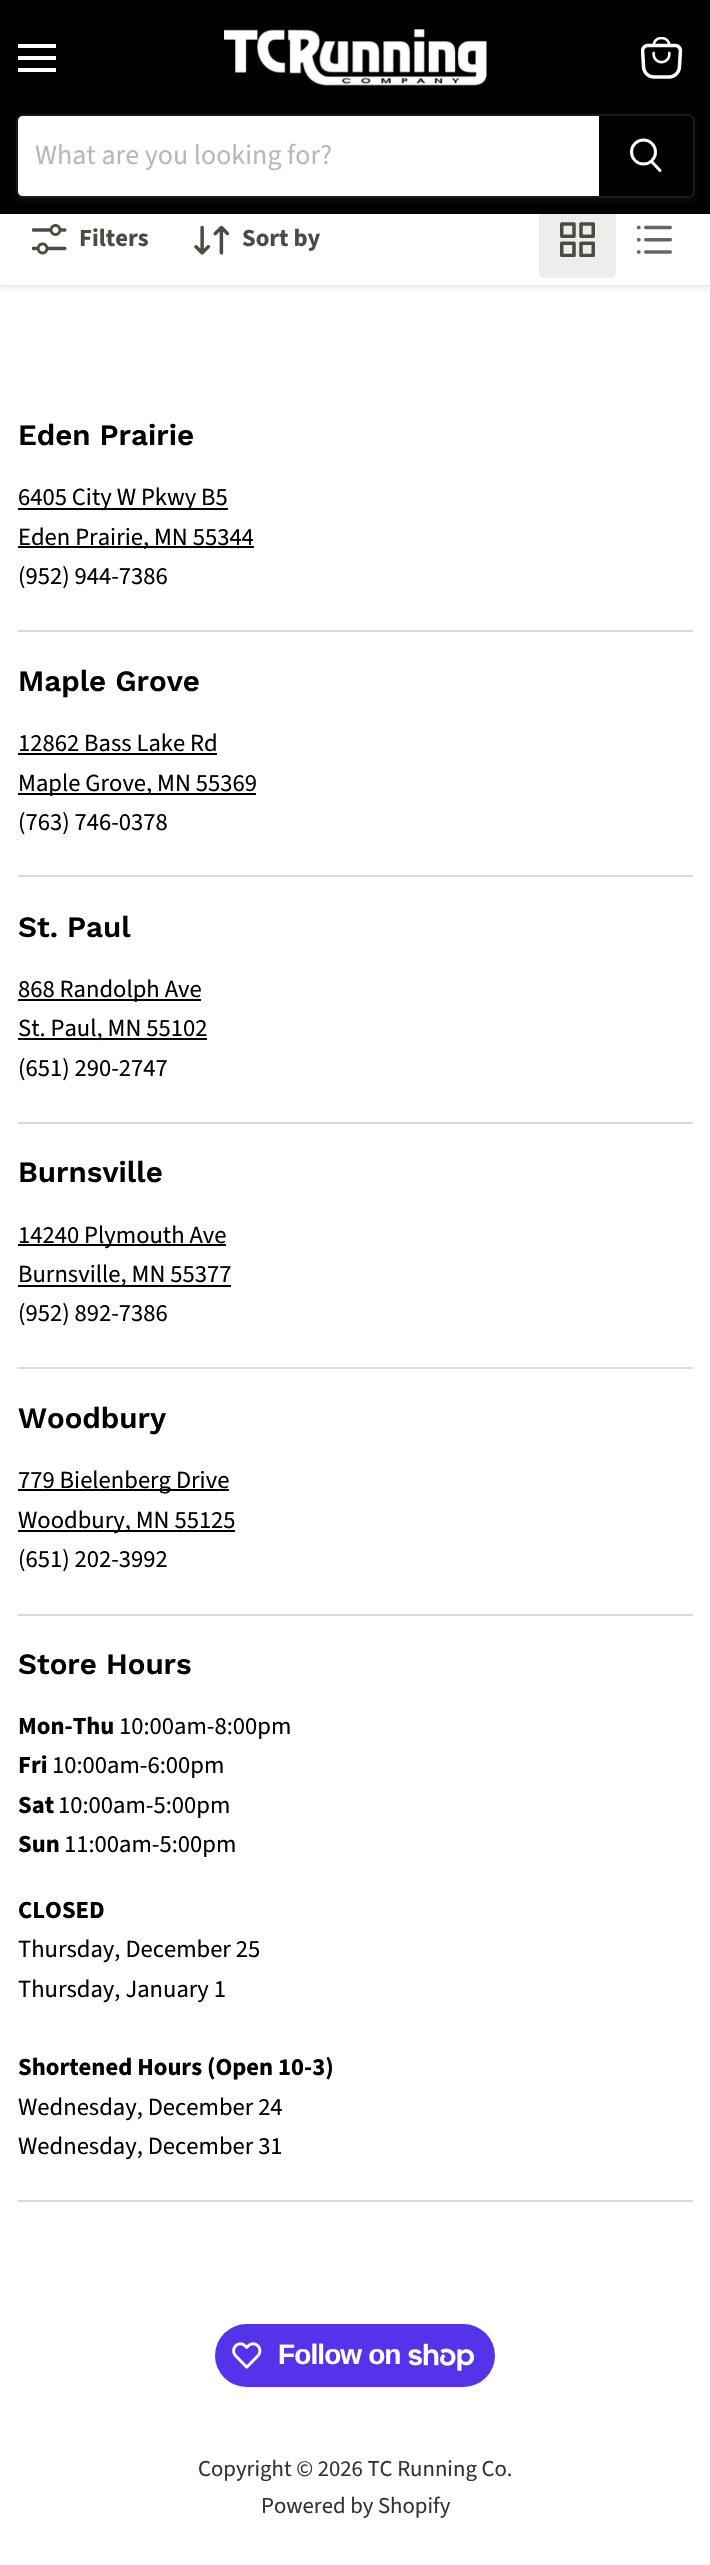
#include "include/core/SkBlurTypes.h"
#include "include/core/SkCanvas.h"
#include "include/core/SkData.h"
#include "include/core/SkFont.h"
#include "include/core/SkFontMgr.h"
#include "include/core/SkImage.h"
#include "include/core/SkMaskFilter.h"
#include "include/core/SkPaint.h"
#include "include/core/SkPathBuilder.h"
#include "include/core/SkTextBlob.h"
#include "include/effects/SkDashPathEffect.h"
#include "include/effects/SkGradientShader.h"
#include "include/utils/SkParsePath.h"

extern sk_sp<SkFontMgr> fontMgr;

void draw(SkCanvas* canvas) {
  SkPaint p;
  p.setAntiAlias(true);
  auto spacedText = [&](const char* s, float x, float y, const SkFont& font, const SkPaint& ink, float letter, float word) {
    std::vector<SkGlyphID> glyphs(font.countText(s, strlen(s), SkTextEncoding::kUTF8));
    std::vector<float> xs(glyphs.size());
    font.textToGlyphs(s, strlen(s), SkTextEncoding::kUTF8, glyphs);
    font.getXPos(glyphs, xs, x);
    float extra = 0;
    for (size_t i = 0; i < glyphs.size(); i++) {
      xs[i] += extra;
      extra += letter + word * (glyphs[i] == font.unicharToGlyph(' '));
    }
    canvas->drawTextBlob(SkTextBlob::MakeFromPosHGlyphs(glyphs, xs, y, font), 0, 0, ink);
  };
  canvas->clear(SK_ColorWHITE);
  p.setColor(SkColorSetARGB(64, 128, 128, 128));
  p.setMaskFilter(SkMaskFilter::MakeBlur(kNormal_SkBlurStyle, 3.5f));
  canvas->drawRect(SkRect::MakeLTRB(0, 196, 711, 287), p);
  p.setMaskFilter(nullptr);
  p.setColor(SK_ColorWHITE);
  canvas->drawRect(SkRect::MakeLTRB(0, 214, 710, 285), p);
  p.setColor(SkColorSetRGB(237, 237, 236));
  canvas->drawRoundRect(SkRect::MakeLTRB(539, 201, 616, 278), 5, 5, p);
  p.setColor(SK_ColorBLACK);
  canvas->drawRect(SkRect::MakeLTRB(0, 0, 710, 214), p);
  p.setColor(SK_ColorWHITE);
  canvas->drawRect(SkRect::MakeLTRB(18, 44, 56, 48), p);
  canvas->drawRect(SkRect::MakeLTRB(18, 56, 56, 60), p);
  canvas->drawRect(SkRect::MakeLTRB(18, 68, 56, 72), p);
  canvas->drawImageRect(SkImages::DeferredFromEncodedData(SkData::MakeFromFileName("images/1.png")), SkRect::MakeLTRB(641, 37, 683, 79), SkSamplingOptions());
  canvas->drawImageRect(SkImages::DeferredFromEncodedData(SkData::MakeFromFileName("images/2.png")), SkRect::MakeLTRB(224, 29, 487, 86), SkSamplingOptions());
  canvas->save();
  canvas->clipPath(SkPathBuilder(SkPathFillType::kEvenOdd).moveTo(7, 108).lineTo(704, 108).lineTo(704, 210).lineTo(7, 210).close().moveTo(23, 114).lineTo(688, 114).cubicTo(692, 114, 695, 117, 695, 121).lineTo(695, 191).cubicTo(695, 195, 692, 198, 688, 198).lineTo(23, 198).cubicTo(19, 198, 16, 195, 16, 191).lineTo(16, 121).cubicTo(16, 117, 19, 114, 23, 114).close().detach(), true);
  p.setColor(SkColorSetARGB(28, 128, 128, 128));
  p.setMaskFilter(SkMaskFilter::MakeBlur(kNormal_SkBlurStyle, 2.5f));
  canvas->drawRoundRect(SkRect::MakeLTRB(16, 117, 695, 201), 7, 7, p);
  p.setMaskFilter(nullptr);
  canvas->restore();
  p.setStyle(SkPaint::kStroke_Style);
  p.setStrokeWidth(2);
  p.setColor(SkColorSetARGB(51, 128, 128, 128));
  canvas->drawRoundRect(SkRect::MakeLTRB(17, 115, 694, 197), 6, 6, p);
  p.setStyle(SkPaint::kFill_Style);
  p.setColor(SK_ColorWHITE);
  canvas->drawPath(SkPathBuilder().moveTo(23, 116).lineTo(599, 116).lineTo(599, 196).lineTo(23, 196).cubicTo(20, 196, 18, 194, 18, 191).lineTo(18, 121).cubicTo(18, 118, 20, 116, 23, 116).close().detach(), p);
  p.setColor(SK_ColorBLACK);
  canvas->drawPath(SkPathBuilder().moveTo(600, 117).lineTo(688, 117).cubicTo(690, 117, 692, 119, 692, 121).lineTo(692, 191).cubicTo(692, 193, 690, 195, 688, 195).lineTo(600, 195).close().detach(), p);
  p.setStyle(SkPaint::kStroke_Style);
  canvas->drawPath(SkPathBuilder().moveTo(600, 117).lineTo(688, 117).cubicTo(690, 117, 692, 119, 692, 121).lineTo(692, 191).cubicTo(692, 193, 690, 195, 688, 195).lineTo(600, 195).close().detach(), p);
  p.setStrokeWidth(3);
  p.setStrokeCap(SkPaint::kRound_Cap);
  p.setColor(SK_ColorWHITE);
  canvas->drawPath(SkPathBuilder().moveTo(660, 170.5f).lineTo(652, 162).detach(), p);
  p.setStrokeCap(SkPaint::kButt_Cap);
  canvas->drawCircle(643.5f, 152, 12, p);
  canvas->drawImageRect(SkImages::DeferredFromEncodedData(SkData::MakeFromFileName("images/3.png")), SkRect::MakeLTRB(32, 224, 67, 255), SkSamplingOptions());
  canvas->drawImageRect(SkImages::DeferredFromEncodedData(SkData::MakeFromFileName("images/4.png")), SkRect::MakeLTRB(194, 225, 229, 255), SkSamplingOptions());
  canvas->drawImageRect(SkImages::DeferredFromEncodedData(SkData::MakeFromFileName("images/5.png")), SkRect::MakeLTRB(560, 222, 595, 257), SkSamplingOptions());
  canvas->drawImageRect(SkImages::DeferredFromEncodedData(SkData::MakeFromFileName("images/6.png")), SkRect::MakeLTRB(637, 225, 672, 254), SkSamplingOptions());
  p.setStyle(SkPaint::kFill_Style);
  p.setColor(SkColorSetRGB(217, 217, 217));
  canvas->drawRect(SkRect::MakeLTRB(18, 630, 693, 632), p);
  p.setColor(SK_ColorBLACK);
  canvas->drawRect(SkRect::MakeLTRB(18, 508, 228, 510), p);
  canvas->drawRect(SkRect::MakeLTRB(18, 546, 254, 548), p);
  p.setColor(SkColorSetRGB(217, 217, 217));
  canvas->drawRect(SkRect::MakeLTRB(18, 875, 693, 877), p);
  p.setColor(SK_ColorBLACK);
  canvas->drawRect(SkRect::MakeLTRB(18, 753, 217, 755), p);
  canvas->drawRect(SkRect::MakeLTRB(18, 793, 256, 795), p);
  p.setColor(SkColorSetRGB(217, 217, 217));
  canvas->drawRect(SkRect::MakeLTRB(18, 1122, 693, 1124), p);
  p.setColor(SK_ColorBLACK);
  canvas->drawRect(SkRect::MakeLTRB(18, 999, 201, 1001), p);
  canvas->drawRect(SkRect::MakeLTRB(18, 1038, 207, 1040), p);
  p.setColor(SkColorSetRGB(217, 217, 217));
  canvas->drawRect(SkRect::MakeLTRB(18, 1367, 693, 1369), p);
  p.setColor(SK_ColorBLACK);
  canvas->drawRect(SkRect::MakeLTRB(18, 1244, 226, 1246), p);
  canvas->drawRect(SkRect::MakeLTRB(18, 1285, 231, 1287), p);
  p.setColor(SkColorSetRGB(217, 217, 217));
  canvas->drawRect(SkRect::MakeLTRB(18, 1614, 693, 1616), p);
  p.setColor(SK_ColorBLACK);
  canvas->drawRect(SkRect::MakeLTRB(18, 1489, 229, 1491), p);
  canvas->drawRect(SkRect::MakeLTRB(18, 1530, 235, 1532), p);
  p.setColor(SkColorSetRGB(217, 217, 217));
  canvas->drawRect(SkRect::MakeLTRB(18, 2200, 693, 2202), p);
  p.setColor(SkColorSetRGB(84, 51, 235));
  canvas->drawRoundRect(SkRect::MakeLTRB(215, 2324, 495, 2387), 31.5f, 31.5f, p);
  canvas->drawImageRect(SkImages::DeferredFromEncodedData(SkData::MakeFromFileName("images/7.png")), SkRect::MakeLTRB(232, 2342, 262, 2369), SkSamplingOptions());
  canvas->drawImageRect(SkImages::DeferredFromEncodedData(SkData::MakeFromFileName("images/8.png")), SkRect::MakeLTRB(408, 2343, 474, 2371), SkSamplingOptions());
  SkFont font1(fontMgr->matchFamilyStyle("Source Sans Pro", SkFontStyle::Normal()), 28);
  font1.setSubpixel(true);
  p.setColor(SkColorSetRGB(184, 184, 184));
  canvas->drawString("What are you looking for?", 35, 164, font1, p);
  SkFont font2(fontMgr->matchFamilyStyle("Source Sans Pro", SkFontStyle::Bold()), 24.6f);
  font2.setSubpixel(true);
  p.setColor(SkColorSetRGB(73, 77, 65));
  canvas->drawString("Filters", 79, 246, font2, p);
  canvas->drawString("Sort by", 242, 246, font2, p);
  SkFont font3(fontMgr->matchFamilyStyle("Work Sans", SkFontStyle(600, SkFontStyle::kNormal_Width, SkFontStyle::kUpright_Slant)), 29.5f);
  font3.setSubpixel(true);
  p.setColor(SK_ColorBLACK);
  canvas->drawString("Eden Prairie", 18, 445, font3, p);
  SkFont font4(fontMgr->matchFamilyStyle("Source Sans Pro", SkFontStyle::Normal()), 24.6f);
  font4.setSubpixel(true);
  canvas->drawString("6405 City W Pkwy B5", 18, 505, font4, p);
  canvas->drawString("Eden Prairie, MN 55344", 18, 545, font4, p);
  canvas->drawString("(952) 944-7386", 18, 584, font4, p);
  canvas->drawString("Maple Grove", 18, 691, font3, p);
  canvas->drawString("12862 Bass Lake Rd", 18, 751, font4, p);
  canvas->drawString("Maple Grove, MN 55369", 18, 791, font4, p);
  canvas->drawString("(763) 746-0378", 18, 830, font4, p);
  canvas->drawString("St. Paul", 18, 937, font3, p);
  canvas->drawString("868 Randolph Ave", 18, 997, font4, p);
  canvas->drawString("St. Paul, MN 55102", 18, 1036, font4, p);
  canvas->drawString("(651) 290-2747", 18, 1076, font4, p);
  canvas->drawString("Burnsville", 18, 1182, font3, p);
  canvas->drawString("14240 Plymouth Ave", 18, 1243, font4, p);
  canvas->drawString("Burnsville, MN 55377", 18, 1282, font4, p);
  canvas->drawString("(952) 892-7386", 18, 1321, font4, p);
  canvas->drawString("Woodbury", 18, 1428, font3, p);
  canvas->drawString("779 Bielenberg Drive", 18, 1488, font4, p);
  canvas->drawString("Woodbury, MN 55125", 18, 1528, font4, p);
  canvas->drawString("(651) 202-3992", 18, 1567, font4, p);
  canvas->drawString("Store Hours", 18, 1674, font3, p);
  canvas->drawString("Mon-Thu", 18, 1734, font2, p);
  canvas->drawString("10:00am-8:00pm", 119, 1734, font4, p);
  canvas->drawString("Fri", 18, 1773, font2, p);
  canvas->drawString("10:00am-6:00pm", 52, 1773, font4, p);
  canvas->drawString("Sat", 18, 1813, font2, p);
  canvas->drawString("10:00am-5:00pm", 58, 1813, font4, p);
  canvas->drawString("Sun", 18, 1852, font2, p);
  canvas->drawString("11:00am-5:00pm", 64, 1852, font4, p);
  canvas->drawString("CLOSED", 18, 1918, font2, p);
  canvas->drawString("Thursday, December 25", 18, 1957, font4, p);
  canvas->drawString("Thursday, January 1", 18, 1997, font4, p);
  canvas->drawString("Shortened Hours (Open 10-3)", 18, 2075, font2, p);
  canvas->drawString("Wednesday, December 24", 18, 2115, font4, p);
  canvas->drawString("Wednesday, December 31", 18, 2154, font4, p);
  SkFont font5(fontMgr->matchFamilyStyle("Liberation Sans", SkFontStyle::Bold()), 28);
  font5.setSubpixel(true);
  p.setColor(SK_ColorWHITE);
  spacedText("Follow on", 278, 2364, font5, p, -0.9f, 0);
  SkFont font6(fontMgr->matchFamilyStyle("Source Sans Pro", SkFontStyle::Normal()), 22.75f);
  font6.setSubpixel(true);
  p.setColor(SkColorSetRGB(51, 51, 51));
  canvas->drawString("Copyright © 2026 TC Running Co.", 198, 2476, font6, p);
  canvas->drawString("Powered by Shopify", 261, 2513, font6, p);
}
